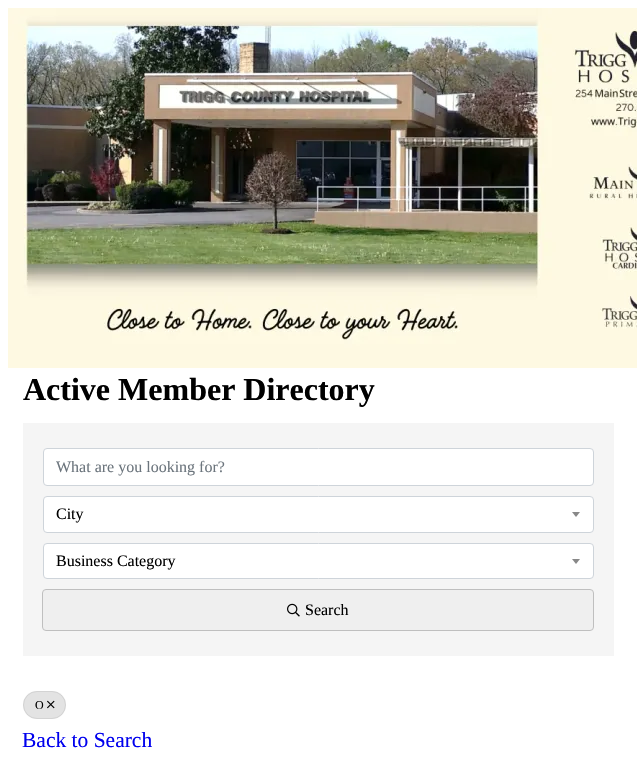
#include "include/core/SkBlurTypes.h"
#include "include/core/SkCanvas.h"
#include "include/core/SkData.h"
#include "include/core/SkFont.h"
#include "include/core/SkFontMgr.h"
#include "include/core/SkImage.h"
#include "include/core/SkMaskFilter.h"
#include "include/core/SkPaint.h"
#include "include/core/SkPathBuilder.h"
#include "include/core/SkTextBlob.h"
#include "include/effects/SkDashPathEffect.h"
#include "include/effects/SkGradientShader.h"
#include "include/utils/SkParsePath.h"

extern sk_sp<SkFontMgr> fontMgr;

void draw(SkCanvas* canvas) {
  SkPaint p;
  p.setAntiAlias(true);
  canvas->clear(SK_ColorWHITE);
  canvas->drawImageRect(SkImages::DeferredFromEncodedData(SkData::MakeFromFileName("images/1.png")), SkRect::MakeLTRB(8, 8, 637, 368), SkSamplingOptions());
  p.setColor(SkColorSetRGB(245, 245, 245));
  canvas->drawRect(SkRect::MakeLTRB(23, 423, 614, 656), p);
  p.setColor(SK_ColorWHITE);
  canvas->drawRoundRect(SkRect::MakeLTRB(43.5f, 448.5f, 593.5f, 485.5f), 3.5f, 3.5f, p);
  p.setStyle(SkPaint::kStroke_Style);
  p.setStrokeWidth(1);
  p.setColor(SkColorSetRGB(206, 212, 218));
  canvas->drawRoundRect(SkRect::MakeLTRB(43.5f, 448.5f, 593.5f, 485.5f), 3.5f, 3.5f, p);
  p.setStyle(SkPaint::kFill_Style);
  p.setColor(SK_ColorWHITE);
  canvas->drawRoundRect(SkRect::MakeLTRB(43.5f, 496.5f, 593.5f, 532.5f), 3.5f, 3.5f, p);
  p.setStyle(SkPaint::kStroke_Style);
  p.setColor(SkColorSetRGB(206, 212, 218));
  canvas->drawRoundRect(SkRect::MakeLTRB(43.5f, 496.5f, 593.5f, 532.5f), 3.5f, 3.5f, p);
  p.setStyle(SkPaint::kFill_Style);
  p.setColor(SkColorSetRGB(136, 136, 136));
  canvas->drawPath(SkPathBuilder().moveTo(572, 512).lineTo(580, 512).lineTo(576, 517).close().detach(), p);
  p.setColor(SK_ColorWHITE);
  canvas->drawRoundRect(SkRect::MakeLTRB(43.5f, 543.5f, 593.5f, 578.5f), 3.5f, 3.5f, p);
  p.setStyle(SkPaint::kStroke_Style);
  p.setColor(SkColorSetRGB(206, 212, 218));
  canvas->drawRoundRect(SkRect::MakeLTRB(43.5f, 543.5f, 593.5f, 578.5f), 3.5f, 3.5f, p);
  p.setStyle(SkPaint::kFill_Style);
  p.setColor(SkColorSetRGB(136, 136, 136));
  canvas->drawPath(SkPathBuilder().moveTo(572, 559).lineTo(580, 559).lineTo(576, 564).close().detach(), p);
  p.setColor(SkColorSetRGB(239, 239, 239));
  canvas->drawRoundRect(SkRect::MakeLTRB(42.5f, 589.5f, 593.5f, 630.5f), 3.5f, 3.5f, p);
  p.setStyle(SkPaint::kStroke_Style);
  p.setColor(SkColorSetRGB(191, 191, 191));
  canvas->drawRoundRect(SkRect::MakeLTRB(42.5f, 589.5f, 593.5f, 630.5f), 3.5f, 3.5f, p);
  canvas->drawImageRect(SkImages::DeferredFromEncodedData(SkData::MakeFromFileName("images/2.png")), SkRect::MakeLTRB(287, 603, 300, 617), SkSamplingOptions());
  p.setStyle(SkPaint::kFill_Style);
  p.setColor(SkColorSetRGB(227, 227, 227));
  canvas->drawRoundRect(SkRect::MakeLTRB(23, 691, 66, 719), 14, 14, p);
  p.setStyle(SkPaint::kStroke_Style);
  p.setColor(SkColorSetARGB(18, 0, 0, 0));
  canvas->drawRoundRect(SkRect::MakeLTRB(23.5f, 691.5f, 65.5f, 718.5f), 13.5f, 13.5f, p);
  canvas->drawImageRect(SkImages::DeferredFromEncodedData(SkData::MakeFromFileName("images/3.png")), SkRect::MakeLTRB(47, 700, 55, 709), SkSamplingOptions());
  SkFont font1(fontMgr->matchFamilyStyle("Liberation Serif", SkFontStyle::Bold()), 32);
  font1.setSubpixel(true);
  p.setStyle(SkPaint::kFill_Style);
  p.setColor(SK_ColorBLACK);
  canvas->drawString("Active Member Directory", 23, 400, font1, p);
  SkFont font2(fontMgr->matchFamilyStyle("Liberation Serif", SkFontStyle::Normal()), 16);
  font2.setSubpixel(true);
  p.setColor(SkColorSetRGB(108, 117, 125));
  canvas->drawString("What are you looking for?", 56, 472, font2, p);
  p.setColor(SK_ColorBLACK);
  canvas->drawString("City", 56, 519, font2, p);
  canvas->drawString("Business Category", 56, 566, font2, p);
  canvas->drawString("Search", 305, 615, font2, p);
  SkFont font3(fontMgr->matchFamilyStyle("Liberation Serif", SkFontStyle::Normal()), 12);
  font3.setSubpixel(true);
  canvas->drawString("O", 35, 709, font3, p);
  SkFont font4(fontMgr->matchFamilyStyle("Liberation Serif", SkFontStyle::Normal()), 21.5f);
  font4.setSubpixel(true);
  p.setColor(SkColorSetRGB(0, 0, 238));
  canvas->drawString("Back to Search", 22, 747, font4, p);
}
